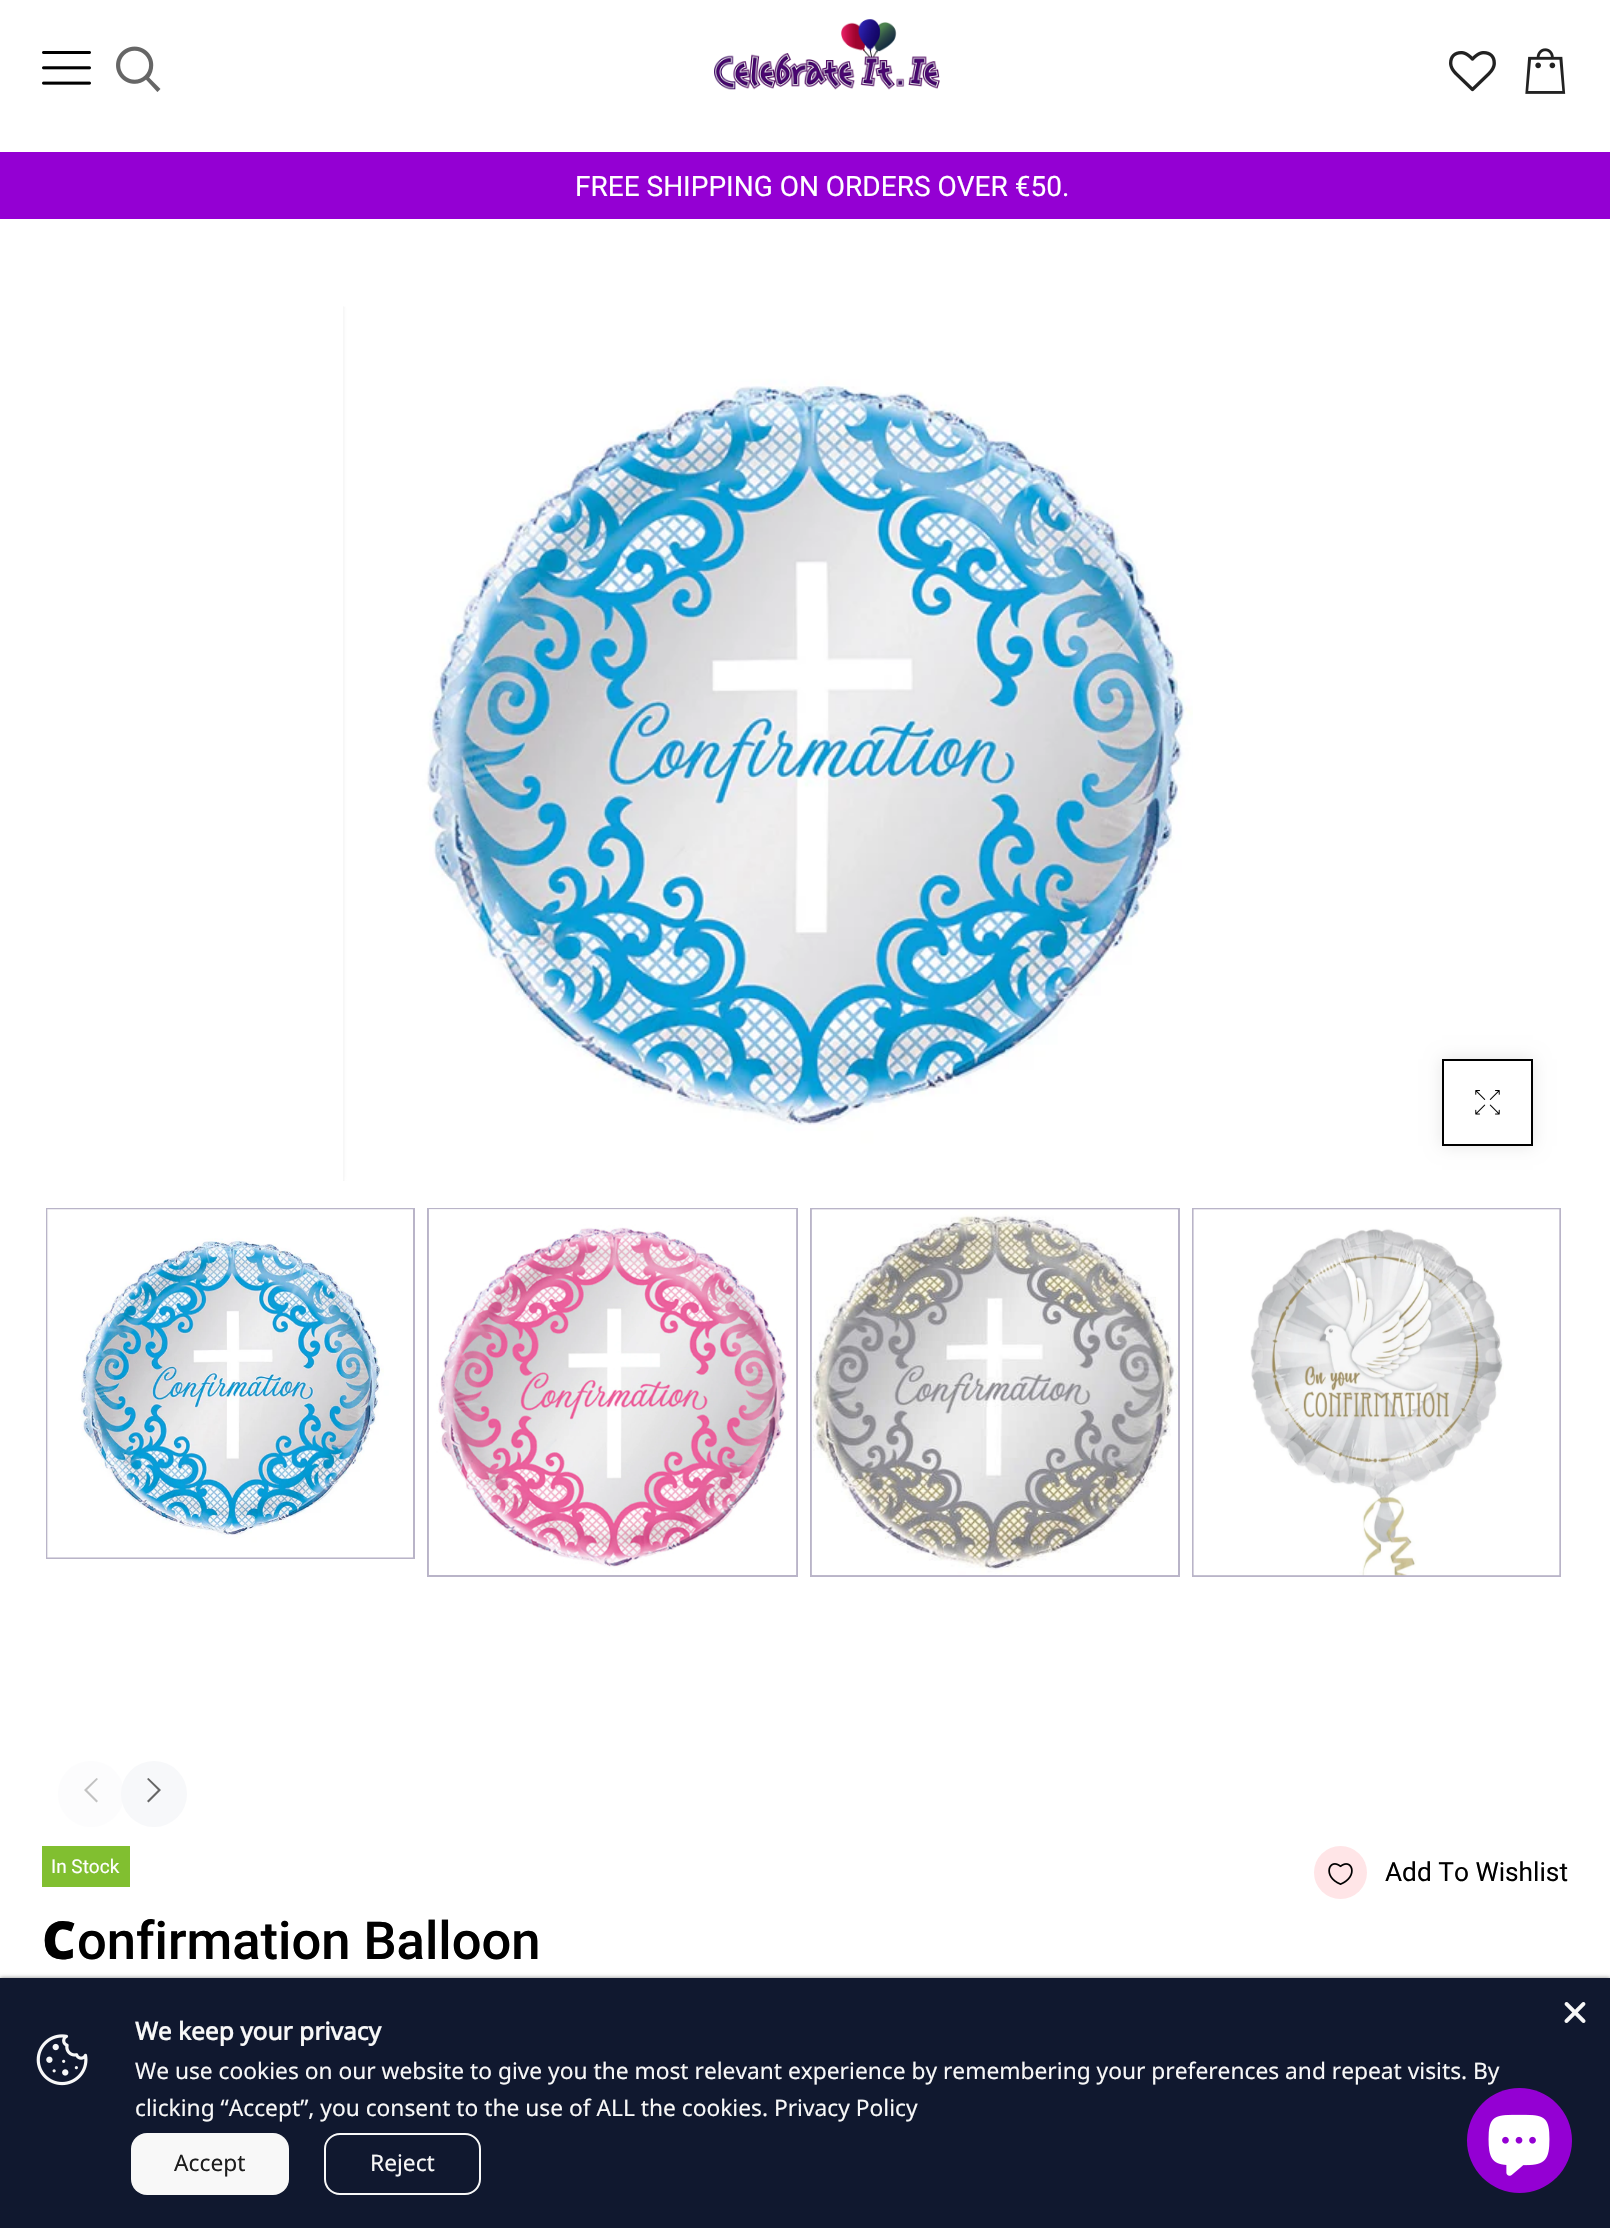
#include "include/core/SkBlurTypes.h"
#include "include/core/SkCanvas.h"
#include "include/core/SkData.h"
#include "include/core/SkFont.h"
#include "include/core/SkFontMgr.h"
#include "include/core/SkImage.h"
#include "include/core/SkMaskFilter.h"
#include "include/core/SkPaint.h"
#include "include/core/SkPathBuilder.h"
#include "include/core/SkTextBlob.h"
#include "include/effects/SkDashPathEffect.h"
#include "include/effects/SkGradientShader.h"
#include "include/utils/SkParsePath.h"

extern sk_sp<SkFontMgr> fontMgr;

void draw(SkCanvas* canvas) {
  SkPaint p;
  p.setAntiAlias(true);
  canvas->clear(SK_ColorWHITE);
  canvas->drawImageRect(SkImages::DeferredFromEncodedData(SkData::MakeFromFileName("images/1.png")), SkRect::MakeLTRB(42, 51, 91, 85), SkSamplingOptions());
  canvas->drawImageRect(SkImages::DeferredFromEncodedData(SkData::MakeFromFileName("images/2.png")), SkRect::MakeLTRB(116, 46, 161, 92), SkSamplingOptions());
  canvas->drawImageRect(SkImages::DeferredFromEncodedData(SkData::MakeFromFileName("images/3.png")), SkRect::MakeLTRB(714, 19, 940, 90), SkSamplingOptions());
  canvas->drawImageRect(SkImages::DeferredFromEncodedData(SkData::MakeFromFileName("images/4.png")), SkRect::MakeLTRB(1449, 51, 1496, 92), SkSamplingOptions());
  canvas->drawImageRect(SkImages::DeferredFromEncodedData(SkData::MakeFromFileName("images/5.png")), SkRect::MakeLTRB(1525, 48, 1566, 94), SkSamplingOptions());
  p.setColor(SkColorSetRGB(148, 0, 211));
  canvas->drawRect(SkRect::MakeLTRB(0, 152, 1610, 219), p);
  canvas->drawImageRect(SkImages::DeferredFromEncodedData(SkData::MakeFromFileName("images/6.png")), SkRect::MakeLTRB(343, 306, 1193, 1181), SkSamplingOptions());
  canvas->save();
  canvas->clipPath(SkPathBuilder(SkPathFillType::kEvenOdd).moveTo(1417, 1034).lineTo(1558, 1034).lineTo(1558, 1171).lineTo(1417, 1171).close().moveTo(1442, 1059).lineTo(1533, 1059).lineTo(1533, 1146).lineTo(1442, 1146).close().detach(), true);
  p.setColor(SkColorSetARGB(26, 0, 0, 0));
  p.setMaskFilter(SkMaskFilter::MakeBlur(kNormal_SkBlurStyle, 8));
  canvas->drawRect(SkRect::MakeLTRB(1442, 1059, 1533, 1146), p);
  p.setMaskFilter(nullptr);
  canvas->restore();
  p.setStyle(SkPaint::kStroke_Style);
  p.setStrokeWidth(2);
  p.setColor(SK_ColorBLACK);
  canvas->drawRect(SkRect::MakeLTRB(1443, 1060, 1532, 1145), p);
  canvas->drawImageRect(SkImages::DeferredFromEncodedData(SkData::MakeFromFileName("images/7.png")), SkRect::MakeLTRB(1475, 1090, 1500, 1115), SkSamplingOptions());
  p.setColor(SkColorSetRGB(185, 180, 200));
  canvas->drawRect(SkRect::MakeLTRB(47, 1209, 414, 1558), p);
  canvas->drawImageRect(SkImages::DeferredFromEncodedData(SkData::MakeFromFileName("images/8.png")), SkRect::MakeLTRB(47, 1209, 413, 1558), SkSamplingOptions());
  canvas->drawRect(SkRect::MakeLTRB(428, 1209, 797, 1576), p);
  canvas->drawImageRect(SkImages::DeferredFromEncodedData(SkData::MakeFromFileName("images/9.png")), SkRect::MakeLTRB(428, 1209, 797, 1575), SkSamplingOptions());
  canvas->drawRect(SkRect::MakeLTRB(811, 1209, 1179, 1576), p);
  canvas->drawImageRect(SkImages::DeferredFromEncodedData(SkData::MakeFromFileName("images/10.png")), SkRect::MakeLTRB(811, 1209, 1178, 1576), SkSamplingOptions());
  canvas->drawRect(SkRect::MakeLTRB(1193, 1209, 1560, 1576), p);
  canvas->drawImageRect(SkImages::DeferredFromEncodedData(SkData::MakeFromFileName("images/11.png")), SkRect::MakeLTRB(1193, 1209, 1560, 1576), SkSamplingOptions());
  p.setStyle(SkPaint::kFill_Style);
  p.setColor(SkColorSetRGB(252, 252, 253));
  canvas->drawCircle(91, 1794, 33, p);
  p.setColor(SkColorSetRGB(194, 194, 194));
  canvas->drawPath(SkPathBuilder().moveTo(96.5f, 1802.5f).lineTo(84, 1790).lineTo(96.5f, 1778).lineTo(98, 1779).lineTo(87, 1790).lineTo(98, 1801).close().detach(), p);
  p.setColor(SkColorSetRGB(247, 248, 250));
  canvas->drawCircle(154, 1794, 33, p);
  p.setColor(SkColorSetRGB(102, 102, 102));
  canvas->drawPath(SkPathBuilder().moveTo(148.5f, 1778).lineTo(161, 1790).lineTo(148.5f, 1802.5f).lineTo(147, 1801).lineTo(158, 1790).lineTo(147, 1779).close().detach(), p);
  p.setColor(SkColorSetRGB(129, 191, 48));
  canvas->drawRect(SkRect::MakeLTRB(42, 1846, 130, 1887), p);
  p.setColor(SkColorSetRGB(255, 229, 231));
  canvas->drawCircle(1340.5f, 1872.5f, 26.5f, p);
  canvas->drawImageRect(SkImages::DeferredFromEncodedData(SkData::MakeFromFileName("images/12.png")), SkRect::MakeLTRB(1328, 1863, 1353, 1885), SkSamplingOptions());
  p.setColor(SkColorSetARGB(128, 0, 0, 0));
  p.setMaskFilter(SkMaskFilter::MakeBlur(kNormal_SkBlurStyle, 2));
  canvas->drawRect(SkRect::MakeLTRB(0, 1978, 1610, 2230), p);
  p.setMaskFilter(nullptr);
  p.setColor(SkColorSetRGB(16, 24, 47));
  canvas->drawRect(SkRect::MakeLTRB(0, 1978, 1610, 2228), p);
  canvas->drawImageRect(SkImages::DeferredFromEncodedData(SkData::MakeFromFileName("images/13.png")), SkRect::MakeLTRB(1564, 2002, 1586, 2023), SkSamplingOptions());
  canvas->drawImageRect(SkImages::DeferredFromEncodedData(SkData::MakeFromFileName("images/14.png")), SkRect::MakeLTRB(36, 2034, 88, 2086), SkSamplingOptions());
  p.setColor(SkColorSetRGB(248, 248, 248));
  canvas->drawRoundRect(SkRect::MakeLTRB(131, 2133, 289, 2195), 16, 16, p);
  p.setStyle(SkPaint::kStroke_Style);
  canvas->drawRoundRect(SkRect::MakeLTRB(325, 2134, 480, 2194), 15, 15, p);
  p.setStyle(SkPaint::kFill_Style);
  p.setColor(SkColorSetRGB(148, 0, 211));
  canvas->drawCircle(1519.5f, 2140.5f, 52.5f, p);
  canvas->drawImageRect(SkImages::DeferredFromEncodedData(SkData::MakeFromFileName("images/15.png")), SkRect::MakeLTRB(1488, 2114, 1550, 2176), SkSamplingOptions());
  SkFont font1(fontMgr->matchFamilyStyle("Roboto", SkFontStyle::Normal()), 28);
  font1.setSubpixel(true);
  p.setColor(SK_ColorWHITE);
  canvas->drawString("FREE SHIPPING ON ORDERS OVER €50.", 575, 196, font1, p);
  SkFont font2(fontMgr->matchFamilyStyle("Roboto", SkFontStyle::Normal()), 19);
  font2.setSubpixel(true);
  canvas->drawString("In Stock", 51, 1873, font2, p);
  SkFont font3(fontMgr->matchFamilyStyle("Roboto", SkFontStyle::Normal()), 26.25f);
  font3.setSubpixel(true);
  p.setColor(SK_ColorBLACK);
  canvas->drawString("Add To Wishlist", 1385, 1881, font3, p);
  SkFont font4(fontMgr->matchFamilyStyle("Noto Sans", SkFontStyle(900, SkFontStyle::kNormal_Width, SkFontStyle::kUpright_Slant)), 52.5f);
  font4.setSubpixel(true);
  canvas->drawString("C", 42, 1959, font4, p);
  SkFont font5(fontMgr->matchFamilyStyle("Roboto", SkFontStyle(500, SkFontStyle::kNormal_Width, SkFontStyle::kUpright_Slant)), 52.5f);
  font5.setSubpixel(true);
  canvas->drawString("onfirmation Balloon", 77, 1959, font5, p);
  SkFont font6(fontMgr->matchFamilyStyle("Noto Sans", SkFontStyle::Bold()), 24.5f);
  font6.setSubpixel(true);
  p.setColor(SkColorSetRGB(248, 248, 248));
  canvas->drawString("We keep your privacy", 135, 2040, font6, p);
  SkFont font7(fontMgr->matchFamilyStyle("Noto Sans", SkFontStyle::Normal()), 22.75f);
  font7.setSubpixel(true);
  canvas->drawString("We use cookies on our website to give you the most relevant experience by remembering your preferences and repeat visits. By", 135, 2079, font7, p);
  canvas->drawString("clicking “Accept”, you consent to the use of ALL the cookies. Privacy Policy", 135, 2116, font7, p);
  p.setColor(SkColorSetRGB(29, 29, 29));
  canvas->drawString("Accept", 174, 2171, font7, p);
  p.setColor(SkColorSetRGB(248, 248, 248));
  canvas->drawString("Reject", 370, 2171, font7, p);
}
